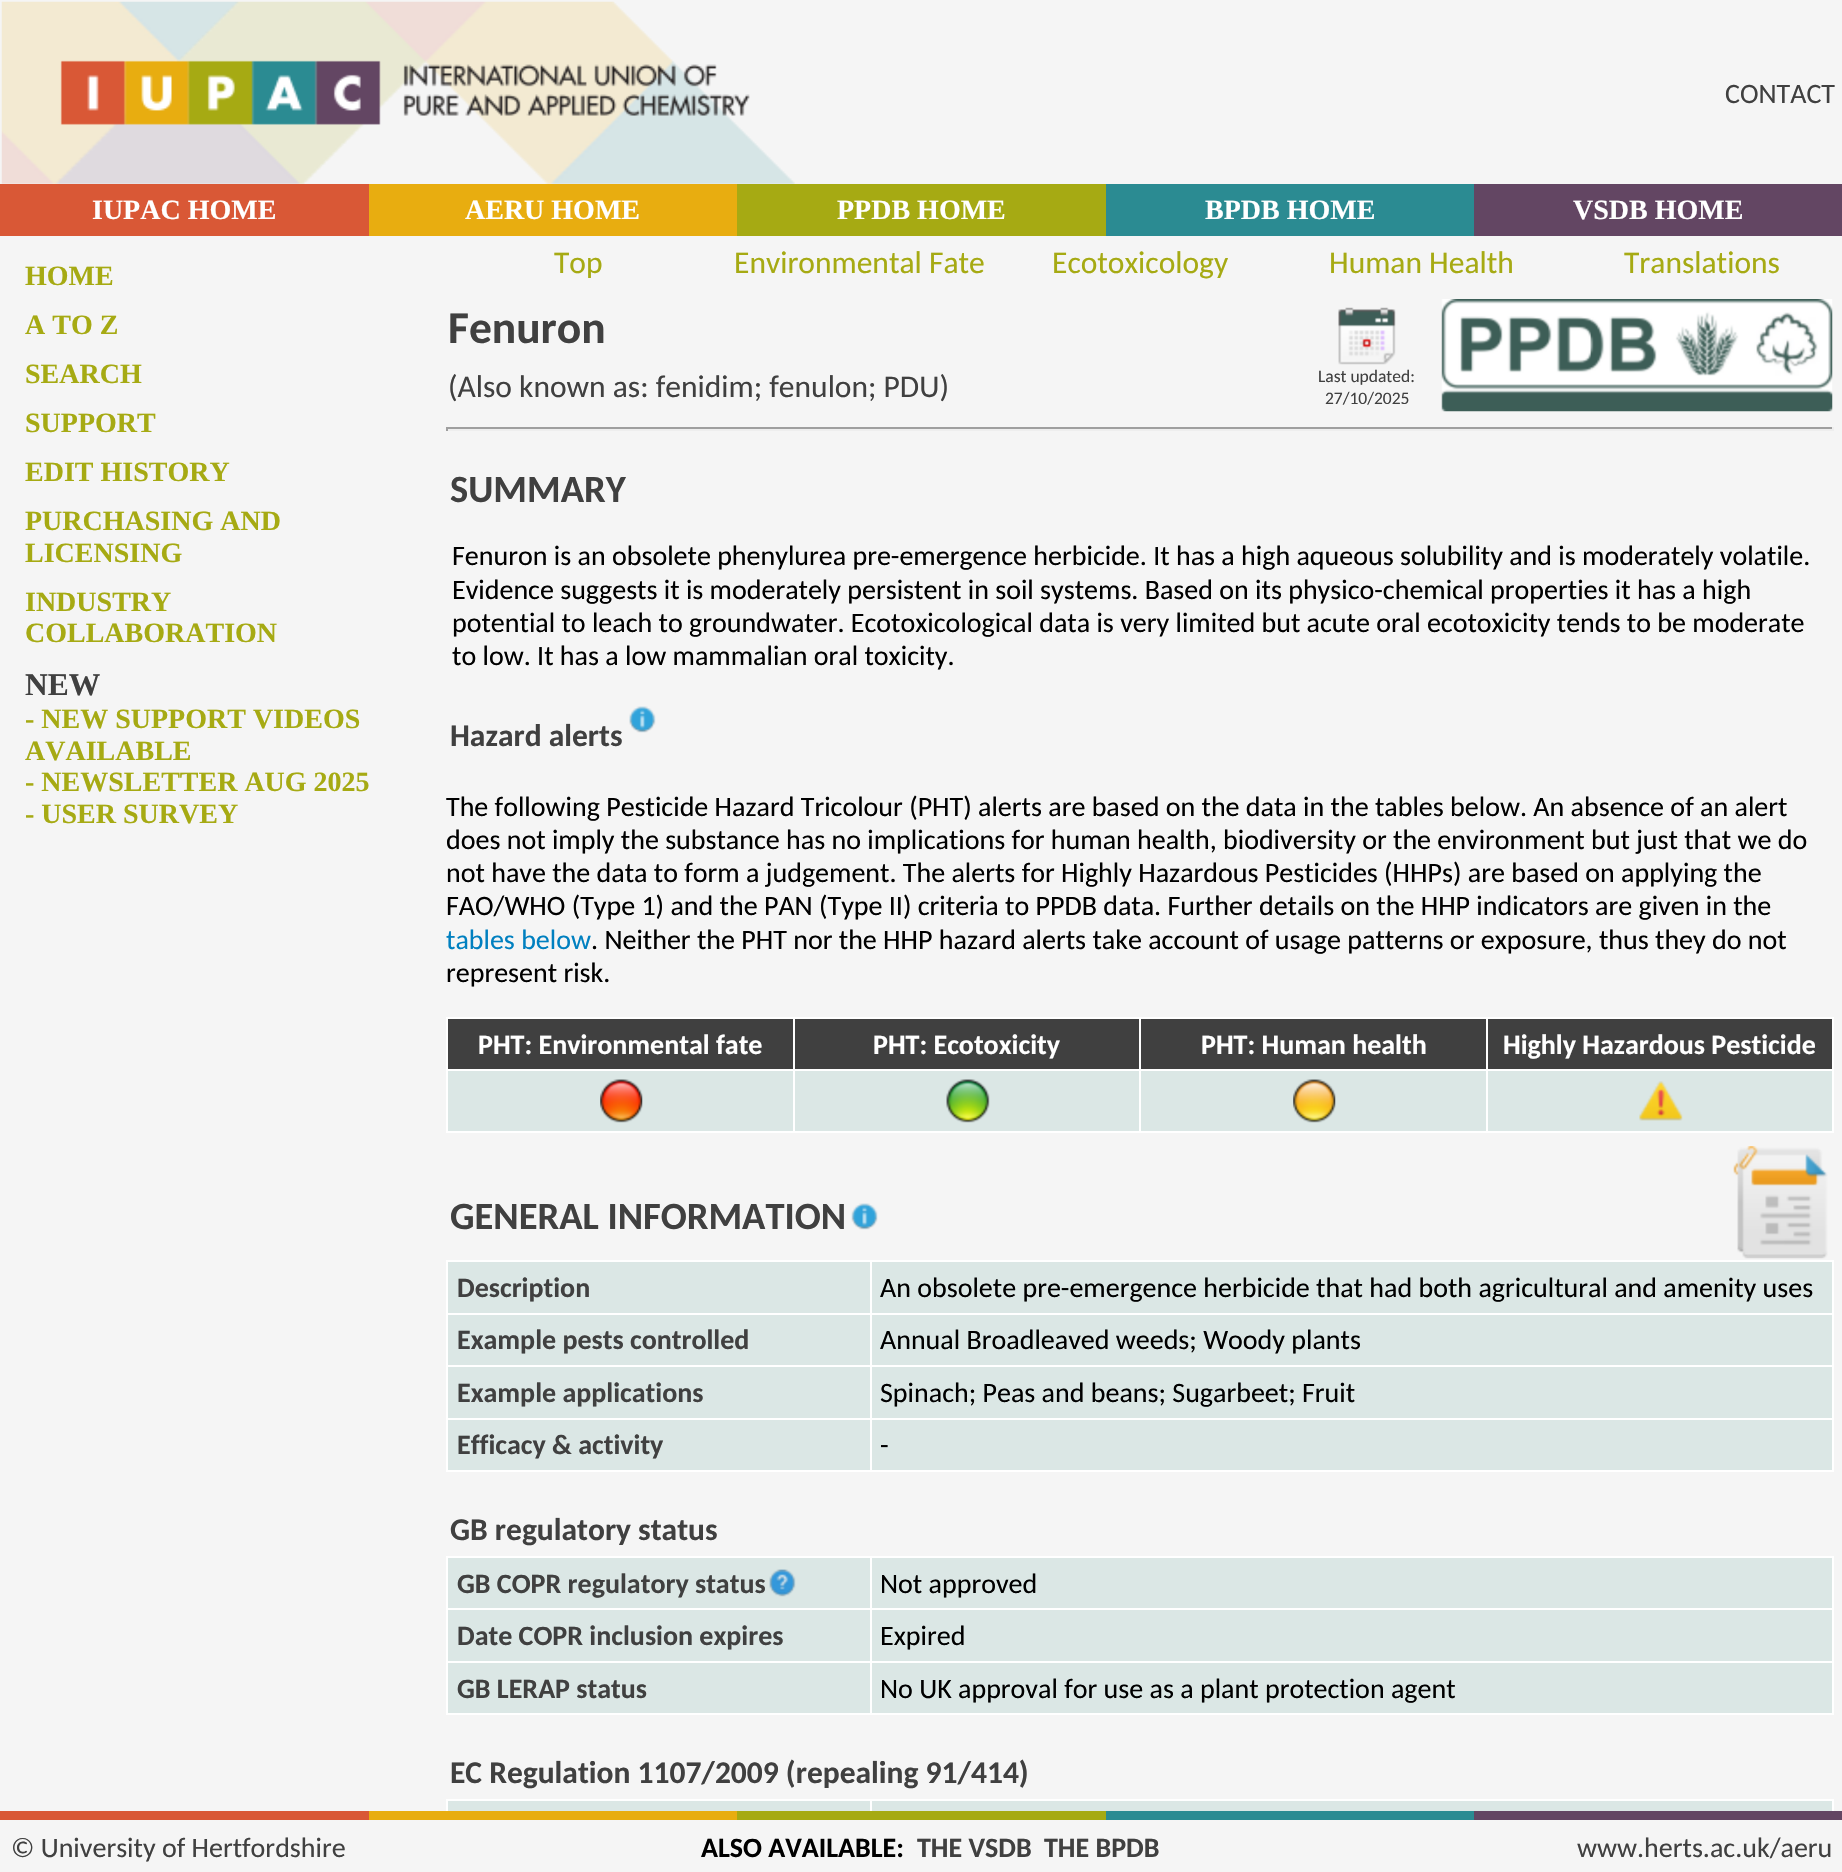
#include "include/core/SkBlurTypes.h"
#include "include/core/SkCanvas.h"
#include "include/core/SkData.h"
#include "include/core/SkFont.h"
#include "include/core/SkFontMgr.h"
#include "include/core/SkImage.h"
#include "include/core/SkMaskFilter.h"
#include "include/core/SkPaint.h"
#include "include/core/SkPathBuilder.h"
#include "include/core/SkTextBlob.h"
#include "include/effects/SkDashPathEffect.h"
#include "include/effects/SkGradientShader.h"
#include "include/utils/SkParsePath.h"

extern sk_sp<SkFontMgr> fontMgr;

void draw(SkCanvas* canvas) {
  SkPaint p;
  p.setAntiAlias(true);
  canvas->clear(SkColorSetRGB(245, 245, 245));
  canvas->drawImageRect(SkImages::DeferredFromEncodedData(SkData::MakeFromFileName("images/1.png")), SkRect::MakeLTRB(1, 1, 795, 184), SkSamplingOptions());
  p.setColor(SkColorSetRGB(217, 88, 54));
  canvas->drawRect(SkRect::MakeLTRB(0, 184, 369, 236), p);
  p.setColor(SkColorSetRGB(232, 173, 16));
  canvas->drawRect(SkRect::MakeLTRB(369, 184, 737, 236), p);
  p.setColor(SkColorSetRGB(166, 170, 19));
  canvas->drawRect(SkRect::MakeLTRB(737, 184, 1106, 236), p);
  p.setColor(SkColorSetRGB(43, 139, 146));
  canvas->drawRect(SkRect::MakeLTRB(1106, 184, 1474, 236), p);
  p.setColor(SkColorSetRGB(99, 70, 99));
  canvas->drawRect(SkRect::MakeLTRB(1474, 184, 1842, 236), p);
  canvas->drawImageRect(SkImages::DeferredFromEncodedData(SkData::MakeFromFileName("images/2.png")), SkRect::MakeLTRB(1441, 299, 1833, 412), SkSamplingOptions());
  canvas->drawImageRect(SkImages::DeferredFromEncodedData(SkData::MakeFromFileName("images/3.png")), SkRect::MakeLTRB(1338, 307, 1396, 365), SkSamplingOptions());
  p.setColor(SkColorSetRGB(159, 159, 159));
  canvas->drawRect(SkRect::MakeLTRB(446, 427, 1834, 429), p);
  p.setColor(SkColorSetRGB(238, 238, 238));
  canvas->drawRect(SkRect::MakeLTRB(1832, 427, 1834, 431), p);
  canvas->drawRect(SkRect::MakeLTRB(446, 429, 1834, 431), p);
  p.setColor(SkColorSetRGB(159, 159, 159));
  canvas->drawRect(SkRect::MakeLTRB(446, 427, 448, 431), p);
  canvas->drawImageRect(SkImages::DeferredFromEncodedData(SkData::MakeFromFileName("images/4.png")), SkRect::MakeLTRB(629, 706, 656, 733), SkSamplingOptions());
  p.setColor(SK_ColorWHITE);
  canvas->drawRect(SkRect::MakeLTRB(446, 1017, 1834, 1019), p);
  canvas->drawRect(SkRect::MakeLTRB(1832, 1017, 1834, 1132), p);
  canvas->drawRect(SkRect::MakeLTRB(446, 1131, 1834, 1133), p);
  canvas->drawRect(SkRect::MakeLTRB(446, 1017, 448, 1132), p);
  p.setColor(SkColorSetRGB(64, 64, 64));
  canvas->drawRect(SkRect::MakeLTRB(448, 1019, 793, 1069), p);
  canvas->drawRect(SkRect::MakeLTRB(795, 1019, 1139, 1069), p);
  p.setColor(SK_ColorWHITE);
  canvas->drawRect(SkRect::MakeLTRB(1486, 1069, 1834, 1071), p);
  canvas->drawRect(SkRect::MakeLTRB(1486, 1069, 1488, 1132), p);
  canvas->drawRect(SkRect::MakeLTRB(1139, 1069, 1488, 1071), p);
  canvas->drawRect(SkRect::MakeLTRB(1139, 1069, 1141, 1132), p);
  canvas->drawRect(SkRect::MakeLTRB(793, 1069, 1141, 1071), p);
  canvas->drawRect(SkRect::MakeLTRB(793, 1069, 795, 1132), p);
  canvas->drawRect(SkRect::MakeLTRB(446, 1069, 795, 1071), p);
  canvas->drawRect(SkRect::MakeLTRB(793, 1017, 795, 1071), p);
  p.setColor(SkColorSetRGB(64, 64, 64));
  canvas->drawRect(SkRect::MakeLTRB(1141, 1019, 1486, 1069), p);
  p.setColor(SK_ColorWHITE);
  canvas->drawRect(SkRect::MakeLTRB(1139, 1017, 1141, 1071), p);
  p.setColor(SkColorSetRGB(64, 64, 64));
  canvas->drawRect(SkRect::MakeLTRB(1488, 1019, 1832, 1069), p);
  p.setColor(SK_ColorWHITE);
  canvas->drawRect(SkRect::MakeLTRB(1486, 1017, 1488, 1071), p);
  p.setColor(SkColorSetRGB(219, 231, 229));
  canvas->drawRect(SkRect::MakeLTRB(448, 1071, 793, 1131), p);
  canvas->drawImageRect(SkImages::DeferredFromEncodedData(SkData::MakeFromFileName("images/5.png")), SkRect::MakeLTRB(600, 1079, 643, 1123), SkSamplingOptions());
  canvas->drawRect(SkRect::MakeLTRB(795, 1071, 1139, 1131), p);
  canvas->drawImageRect(SkImages::DeferredFromEncodedData(SkData::MakeFromFileName("images/6.png")), SkRect::MakeLTRB(946, 1079, 990, 1123), SkSamplingOptions());
  canvas->drawRect(SkRect::MakeLTRB(1141, 1071, 1486, 1131), p);
  canvas->drawImageRect(SkImages::DeferredFromEncodedData(SkData::MakeFromFileName("images/7.png")), SkRect::MakeLTRB(1293, 1079, 1336, 1123), SkSamplingOptions());
  canvas->drawRect(SkRect::MakeLTRB(1488, 1071, 1832, 1131), p);
  canvas->drawImageRect(SkImages::DeferredFromEncodedData(SkData::MakeFromFileName("images/8.png")), SkRect::MakeLTRB(1639, 1081, 1683, 1121), SkSamplingOptions());
  canvas->drawImageRect(SkImages::DeferredFromEncodedData(SkData::MakeFromFileName("images/9.png")), SkRect::MakeLTRB(851, 1203, 878, 1230), SkSamplingOptions());
  canvas->drawImageRect(SkImages::DeferredFromEncodedData(SkData::MakeFromFileName("images/10.png")), SkRect::MakeLTRB(1733, 1146, 1828, 1259), SkSamplingOptions());
  p.setColor(SK_ColorWHITE);
  canvas->drawRect(SkRect::MakeLTRB(446, 1260, 1834, 1262), p);
  canvas->drawRect(SkRect::MakeLTRB(1832, 1260, 1834, 1472), p);
  canvas->drawRect(SkRect::MakeLTRB(446, 1470, 1834, 1472), p);
  canvas->drawRect(SkRect::MakeLTRB(446, 1260, 448, 1472), p);
  p.setColor(SkColorSetRGB(219, 231, 229));
  canvas->drawRect(SkRect::MakeLTRB(448, 1262, 1832, 1470), p);
  p.setColor(SK_ColorWHITE);
  canvas->drawRect(SkRect::MakeLTRB(870, 1313, 1834, 1315), p);
  canvas->drawRect(SkRect::MakeLTRB(870, 1365, 1834, 1367), p);
  canvas->drawRect(SkRect::MakeLTRB(870, 1418, 1834, 1420), p);
  canvas->drawRect(SkRect::MakeLTRB(870, 1418, 872, 1472), p);
  canvas->drawRect(SkRect::MakeLTRB(446, 1418, 872, 1420), p);
  canvas->drawRect(SkRect::MakeLTRB(870, 1365, 872, 1419), p);
  canvas->drawRect(SkRect::MakeLTRB(446, 1365, 872, 1367), p);
  canvas->drawRect(SkRect::MakeLTRB(870, 1313, 872, 1367), p);
  canvas->drawRect(SkRect::MakeLTRB(446, 1313, 872, 1315), p);
  canvas->drawRect(SkRect::MakeLTRB(870, 1260, 872, 1314), p);
  canvas->drawRect(SkRect::MakeLTRB(446, 1556, 1834, 1558), p);
  canvas->drawRect(SkRect::MakeLTRB(1832, 1556, 1834, 1715), p);
  canvas->drawRect(SkRect::MakeLTRB(446, 1713, 1834, 1715), p);
  canvas->drawRect(SkRect::MakeLTRB(446, 1556, 448, 1715), p);
  p.setColor(SkColorSetRGB(219, 231, 229));
  canvas->drawRect(SkRect::MakeLTRB(448, 1558, 1832, 1713), p);
  canvas->drawImageRect(SkImages::DeferredFromEncodedData(SkData::MakeFromFileName("images/11.png")), SkRect::MakeLTRB(769, 1569, 796, 1597), SkSamplingOptions());
  p.setColor(SK_ColorWHITE);
  canvas->drawRect(SkRect::MakeLTRB(870, 1608, 1834, 1610), p);
  canvas->drawRect(SkRect::MakeLTRB(870, 1661, 1834, 1663), p);
  canvas->drawRect(SkRect::MakeLTRB(870, 1661, 872, 1715), p);
  canvas->drawRect(SkRect::MakeLTRB(446, 1661, 872, 1663), p);
  canvas->drawRect(SkRect::MakeLTRB(870, 1608, 872, 1663), p);
  canvas->drawRect(SkRect::MakeLTRB(446, 1608, 872, 1610), p);
  canvas->drawRect(SkRect::MakeLTRB(870, 1556, 872, 1610), p);
  canvas->drawRect(SkRect::MakeLTRB(446, 1799, 1834, 1801), p);
  canvas->drawRect(SkRect::MakeLTRB(1832, 1799, 1834, 1811), p);
  canvas->drawRect(SkRect::MakeLTRB(446, 1799, 448, 1811), p);
  p.setColor(SkColorSetRGB(219, 231, 229));
  canvas->drawRect(SkRect::MakeLTRB(448, 1801, 1832, 1811), p);
  p.setColor(SK_ColorWHITE);
  canvas->drawRect(SkRect::MakeLTRB(870, 1799, 872, 1811), p);
  p.setColor(SkColorSetRGB(217, 88, 54));
  canvas->drawRect(SkRect::MakeLTRB(0, 1811, 369, 1820), p);
  p.setColor(SkColorSetRGB(232, 173, 16));
  canvas->drawRect(SkRect::MakeLTRB(369, 1811, 737, 1820), p);
  p.setColor(SkColorSetRGB(166, 170, 19));
  canvas->drawRect(SkRect::MakeLTRB(737, 1811, 1106, 1820), p);
  p.setColor(SkColorSetRGB(43, 139, 146));
  canvas->drawRect(SkRect::MakeLTRB(1106, 1811, 1474, 1820), p);
  p.setColor(SkColorSetRGB(99, 70, 99));
  canvas->drawRect(SkRect::MakeLTRB(1474, 1811, 1842, 1820), p);
  SkFont font1(fontMgr->matchFamilyStyle("Carlito", SkFontStyle::Normal()), 28);
  font1.setSubpixel(true);
  p.setColor(SkColorSetRGB(64, 64, 64));
  canvas->drawString("CONTACT", 1725, 103, font1, p);
  SkFont font2(fontMgr->matchFamilyStyle("Liberation Serif", SkFontStyle::Bold()), 28);
  font2.setSubpixel(true);
  p.setColor(SK_ColorWHITE);
  canvas->drawString("IUPAC HOME", 92, 219, font2, p);
  canvas->drawString("AERU HOME", 465, 219, font2, p);
  canvas->drawString("PPDB HOME", 837, 219, font2, p);
  canvas->drawString("BPDB HOME", 1205, 219, font2, p);
  canvas->drawString("VSDB HOME", 1573, 219, font2, p);
  p.setColor(SkColorSetRGB(166, 170, 19));
  canvas->drawString("HOME", 25, 285, font2, p);
  canvas->drawString("A TO Z", 25, 334, font2, p);
  canvas->drawString("SEARCH", 25, 383, font2, p);
  canvas->drawString("SUPPORT", 25, 432, font2, p);
  canvas->drawString("EDIT HISTORY", 25, 481, font2, p);
  canvas->drawString("PURCHASING AND", 25, 530, font2, p);
  canvas->drawString("LICENSING", 25, 562, font2, p);
  canvas->drawString("INDUSTRY", 25, 611, font2, p);
  canvas->drawString("COLLABORATION", 25, 642, font2, p);
  SkFont font3(fontMgr->matchFamilyStyle("Liberation Serif", SkFontStyle::Bold()), 31.5f);
  font3.setSubpixel(true);
  p.setColor(SkColorSetRGB(64, 64, 64));
  canvas->drawString("NEW", 25, 695, font3, p);
  p.setColor(SkColorSetRGB(166, 170, 19));
  canvas->drawString("- NEW SUPPORT VIDEOS", 25, 728, font2, p);
  canvas->drawString("AVAILABLE", 25, 760, font2, p);
  canvas->drawString("- NEWSLETTER AUG 2025", 25, 791, font2, p);
  canvas->drawString("- USER SURVEY", 25, 823, font2, p);
  SkFont font4(fontMgr->matchFamilyStyle("Carlito", SkFontStyle::Normal()), 31.5f);
  font4.setSubpixel(true);
  canvas->drawString("Top", 554, 273, font4, p);
  canvas->drawString("Environmental Fate", 734, 273, font4, p);
  canvas->drawString("Ecotoxicology", 1052, 273, font4, p);
  canvas->drawString("Human Health", 1329, 273, font4, p);
  canvas->drawString("Translations", 1624, 273, font4, p);
  SkFont font5(fontMgr->matchFamilyStyle("Carlito", SkFontStyle::Bold()), 45.5f);
  font5.setSubpixel(true);
  p.setColor(SkColorSetRGB(64, 64, 64));
  canvas->drawString("Fenuron", 448, 343, font5, p);
  SkFont font6(fontMgr->matchFamilyStyle("Carlito", SkFontStyle::Normal()), 17.5f);
  font6.setSubpixel(true);
  canvas->drawString("Last updated:", 1318, 382, font6, p);
  canvas->drawString("27/10/2025", 1325, 404, font6, p);
  canvas->drawString("(Also known as: fenidim; fenulon; PDU)", 448, 397, font4, p);
  SkFont font7(fontMgr->matchFamilyStyle("Carlito", SkFontStyle::Bold()), 38.5f);
  font7.setSubpixel(true);
  canvas->drawString("SUMMARY", 450, 502, font7, p);
  p.setColor(SK_ColorBLACK);
  canvas->drawString("Fenuron is an obsolete phenylurea pre-emergence herbicide. It has a high aqueous solubility and is moderately volatile.", 452, 565, font1, p);
  canvas->drawString("Evidence suggests it is moderately persistent in soil systems. Based on its physico-chemical properties it has a high", 452, 599, font1, p);
  canvas->drawString("potential to leach to groundwater. Ecotoxicological data is very limited but acute oral ecotoxicity tends to be moderate", 452, 632, font1, p);
  canvas->drawString("to low. It has a low mammalian oral toxicity.", 452, 665, font1, p);
  SkFont font8(fontMgr->matchFamilyStyle("Carlito", SkFontStyle::Bold()), 31.5f);
  font8.setSubpixel(true);
  p.setColor(SkColorSetRGB(64, 64, 64));
  canvas->drawString("Hazard alerts", 450, 746, font8, p);
  p.setColor(SK_ColorBLACK);
  canvas->drawString("The following Pesticide Hazard Tricolour (PHT) alerts are based on the data in the tables below. An absence of an alert", 446, 816, font1, p);
  canvas->drawString("does not imply the substance has no implications for human health, biodiversity or the environment but just that we do", 446, 849, font1, p);
  canvas->drawString("not have the data to form a judgement. The alerts for Highly Hazardous Pesticides (HHPs) are based on applying the", 446, 882, font1, p);
  canvas->drawString("FAO/WHO (Type 1) and the PAN (Type II) criteria to PPDB data. Further details on the HHP indicators are given in the", 446, 915, font1, p);
  p.setColor(SkColorSetRGB(0, 128, 192));
  canvas->drawString("tables below", 446, 949, font1, p);
  p.setColor(SK_ColorBLACK);
  canvas->drawString(". Neither the PHT nor the HHP hazard alerts take account of usage patterns or exposure, thus they do not", 591, 949, font1, p);
  canvas->drawString("represent risk.", 446, 982, font1, p);
  SkFont font9(fontMgr->matchFamilyStyle("Carlito", SkFontStyle::Bold()), 28);
  font9.setSubpixel(true);
  p.setColor(SK_ColorWHITE);
  canvas->drawString("PHT: Environmental fate", 478, 1054, font9, p);
  canvas->drawString("PHT: Ecotoxicity", 873, 1054, font9, p);
  canvas->drawString("PHT: Human health", 1201, 1054, font9, p);
  canvas->drawString("Highly Hazardous Pesticide", 1503, 1054, font9, p);
  p.setColor(SkColorSetRGB(64, 64, 64));
  canvas->drawString("GENERAL INFORMATION", 450, 1229, font7, p);
  canvas->drawString("Description", 457, 1297, font9, p);
  p.setColor(SK_ColorBLACK);
  canvas->drawString("An obsolete pre-emergence herbicide that had both agricultural and amenity uses", 880, 1297, font1, p);
  p.setColor(SkColorSetRGB(64, 64, 64));
  canvas->drawString("Example pests controlled", 457, 1349, font9, p);
  p.setColor(SK_ColorBLACK);
  canvas->drawString("Annual Broadleaved weeds; Woody plants", 880, 1349, font1, p);
  p.setColor(SkColorSetRGB(64, 64, 64));
  canvas->drawString("Example applications", 457, 1402, font9, p);
  p.setColor(SK_ColorBLACK);
  canvas->drawString("Spinach; Peas and beans; Sugarbeet; Fruit", 880, 1402, font1, p);
  p.setColor(SkColorSetRGB(64, 64, 64));
  canvas->drawString("Efficacy & activity", 457, 1454, font9, p);
  p.setColor(SK_ColorBLACK);
  canvas->drawString("-", 880, 1454, font1, p);
  p.setColor(SkColorSetRGB(64, 64, 64));
  canvas->drawString("GB regulatory status", 450, 1540, font8, p);
  canvas->drawString("GB COPR regulatory status", 457, 1593, font9, p);
  p.setColor(SK_ColorBLACK);
  canvas->drawString("Not approved", 880, 1593, font1, p);
  p.setColor(SkColorSetRGB(64, 64, 64));
  canvas->drawString("Date COPR inclusion expires", 457, 1645, font9, p);
  p.setColor(SK_ColorBLACK);
  canvas->drawString("Expired", 880, 1645, font1, p);
  p.setColor(SkColorSetRGB(64, 64, 64));
  canvas->drawString("GB LERAP status", 457, 1698, font9, p);
  p.setColor(SK_ColorBLACK);
  canvas->drawString("No UK approval for use as a plant protection agent", 880, 1698, font1, p);
  p.setColor(SkColorSetRGB(64, 64, 64));
  canvas->drawString("EC Regulation 1107/2009 (repealing 91/414)", 450, 1783, font8, p);
  canvas->drawString("© University of Hertfordshire", 11, 1857, font1, p);
  p.setColor(SK_ColorBLACK);
  canvas->drawString("ALSO AVAILABLE:", 701, 1857, font9, p);
  p.setColor(SkColorSetRGB(64, 64, 64));
  canvas->drawString("THE VSDB", 917, 1857, font9, p);
  canvas->drawString("THE BPDB", 1044, 1857, font9, p);
  canvas->drawString("www.herts.ac.uk/aeru", 1577, 1857, font1, p);
}
